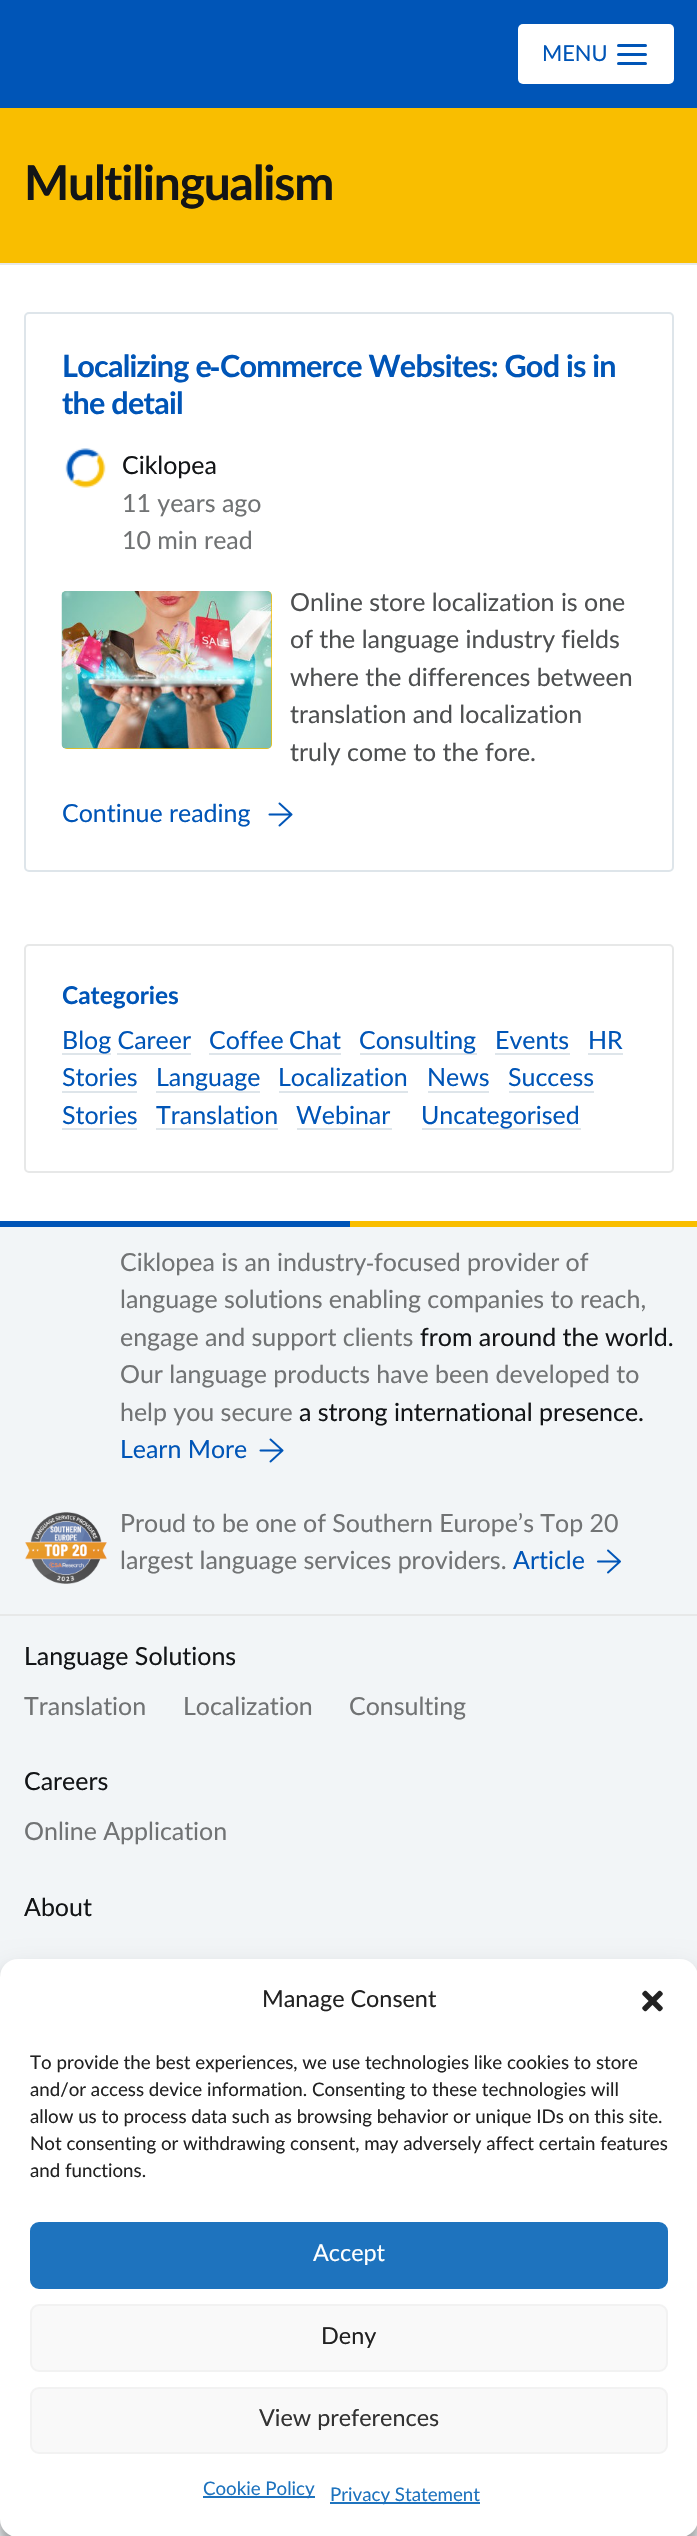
#include "include/core/SkBlurTypes.h"
#include "include/core/SkCanvas.h"
#include "include/core/SkData.h"
#include "include/core/SkFont.h"
#include "include/core/SkFontMgr.h"
#include "include/core/SkImage.h"
#include "include/core/SkMaskFilter.h"
#include "include/core/SkPaint.h"
#include "include/core/SkPathBuilder.h"
#include "include/core/SkTextBlob.h"
#include "include/effects/SkDashPathEffect.h"
#include "include/effects/SkGradientShader.h"
#include "include/utils/SkParsePath.h"

extern sk_sp<SkFontMgr> fontMgr;

void draw(SkCanvas* canvas) {
  SkPaint p;
  p.setAntiAlias(true);
  auto spacedText = [&](const char* s, float x, float y, const SkFont& font, const SkPaint& ink, float letter, float word) {
    std::vector<SkGlyphID> glyphs(font.countText(s, strlen(s), SkTextEncoding::kUTF8));
    std::vector<float> xs(glyphs.size());
    font.textToGlyphs(s, strlen(s), SkTextEncoding::kUTF8, glyphs);
    font.getXPos(glyphs, xs, x);
    float extra = 0;
    for (size_t i = 0; i < glyphs.size(); i++) {
      xs[i] += extra;
      extra += letter + word * (glyphs[i] == font.unicharToGlyph(' '));
    }
    canvas->drawTextBlob(SkTextBlob::MakeFromPosHGlyphs(glyphs, xs, y, font), 0, 0, ink);
  };
  canvas->clear(SkColorSetRGB(242, 245, 247));
  p.setColor(SkColorSetRGB(0, 85, 183));
  canvas->drawRect(SkRect::MakeLTRB(0, 0, 697, 108), p);
  p.setColor(SK_ColorWHITE);
  canvas->drawRoundRect(SkRect::MakeLTRB(518, 24, 674, 84), 5, 5, p);
  p.setColor(SkColorSetRGB(0, 85, 183));
  canvas->drawRoundRect(SkRect::MakeLTRB(617, 44, 647, 47), 1.5f, 1.5f, p);
  canvas->drawRoundRect(SkRect::MakeLTRB(617, 53, 647, 56), 1.5f, 1.5f, p);
  canvas->drawRoundRect(SkRect::MakeLTRB(617, 62, 647, 65), 1.5f, 1.5f, p);
  p.setColor(SK_ColorWHITE);
  canvas->drawRect(SkRect::MakeLTRB(0, 265, 697, 1221), p);
  p.setColor(SkColorSetRGB(249, 190, 0));
  canvas->drawRect(SkRect::MakeLTRB(0, 108, 697, 263), p);
  p.setColor(SkColorSetRGB(231, 232, 232));
  canvas->drawRect(SkRect::MakeLTRB(0, 263, 697, 265), p);
  p.setStyle(SkPaint::kStroke_Style);
  p.setStrokeWidth(2);
  p.setColor(SkColorSetRGB(222, 229, 234));
  canvas->drawRoundRect(SkRect::MakeLTRB(25, 313, 673, 871), 4, 4, p);
  canvas->drawImageRect(SkImages::DeferredFromEncodedData(SkData::MakeFromFileName("images/1.png")), SkRect::MakeLTRB(65, 448, 106, 488), SkSamplingOptions());
  p.setStyle(SkPaint::kFill_Style);
  p.setColor(SkColorSetRGB(249, 190, 0));
  canvas->drawRoundRect(SkRect::MakeLTRB(62, 591, 272, 749), 5, 5, p);
  canvas->drawImageRect(SkImages::DeferredFromEncodedData(SkData::MakeFromFileName("images/2.png")), SkRect::MakeLTRB(61, 591, 272, 749), SkSamplingOptions());
  canvas->drawImageRect(SkImages::DeferredFromEncodedData(SkData::MakeFromFileName("images/3.png")), SkRect::MakeLTRB(268, 802, 293, 827), SkSamplingOptions());
  p.setStyle(SkPaint::kStroke_Style);
  p.setColor(SkColorSetRGB(231, 232, 232));
  canvas->drawRoundRect(SkRect::MakeLTRB(25, 945, 673, 1172), 4, 4, p);
  p.setStyle(SkPaint::kFill_Style);
  p.setColor(SkColorSetRGB(222, 229, 234));
  canvas->drawRect(SkRect::MakeLTRB(62, 1053, 111, 1055), p);
  canvas->drawRect(SkRect::MakeLTRB(209, 1053, 341, 1055), p);
  canvas->drawRect(SkRect::MakeLTRB(360, 1053, 477, 1055), p);
  canvas->drawRect(SkRect::MakeLTRB(495, 1053, 570, 1055), p);
  canvas->drawRect(SkRect::MakeLTRB(588, 1053, 623, 1055), p);
  canvas->drawRect(SkRect::MakeLTRB(62, 1091, 137, 1093), p);
  canvas->drawRect(SkRect::MakeLTRB(156, 1091, 260, 1093), p);
  canvas->drawRect(SkRect::MakeLTRB(279, 1091, 408, 1093), p);
  canvas->drawRect(SkRect::MakeLTRB(428, 1091, 489, 1093), p);
  canvas->drawRect(SkRect::MakeLTRB(509, 1091, 594, 1093), p);
  canvas->drawRect(SkRect::MakeLTRB(62, 1128, 137, 1130), p);
  canvas->drawRect(SkRect::MakeLTRB(156, 1128, 278, 1130), p);
  canvas->drawRect(SkRect::MakeLTRB(297, 1128, 392, 1130), p);
  canvas->drawRect(SkRect::MakeLTRB(422, 1128, 581, 1130), p);
  p.setColor(SkColorSetRGB(0, 85, 183));
  canvas->drawRect(SkRect::MakeLTRB(0, 1221, 350, 1227), p);
  p.setColor(SkColorSetRGB(249, 190, 0));
  canvas->drawRect(SkRect::MakeLTRB(350, 1221, 697, 1227), p);
  canvas->drawImageRect(SkImages::DeferredFromEncodedData(SkData::MakeFromFileName("images/4.png")), SkRect::MakeLTRB(259, 1438, 284, 1463), SkSamplingOptions());
  canvas->drawImageRect(SkImages::DeferredFromEncodedData(SkData::MakeFromFileName("images/5.png")), SkRect::MakeLTRB(25, 1512, 107, 1584), SkSamplingOptions());
  canvas->drawImageRect(SkImages::DeferredFromEncodedData(SkData::MakeFromFileName("images/6.png")), SkRect::MakeLTRB(597, 1549, 621, 1574), SkSamplingOptions());
  p.setColor(SkColorSetRGB(231, 232, 232));
  canvas->drawRect(SkRect::MakeLTRB(0, 1614, 697, 1616), p);
  p.setColor(SkColorSetARGB(59, 0, 0, 0));
  p.setMaskFilter(SkMaskFilter::MakeBlur(kNormal_SkBlurStyle, 4.5f));
  canvas->drawRoundRect(SkRect::MakeLTRB(0, 1968, 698, 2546), 18, 18, p);
  p.setMaskFilter(nullptr);
  p.setColor(SkColorSetARGB(48, 0, 0, 0));
  p.setMaskFilter(SkMaskFilter::MakeBlur(kNormal_SkBlurStyle, 15));
  canvas->drawRoundRect(SkRect::MakeLTRB(0, 1974, 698, 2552), 18, 18, p);
  p.setMaskFilter(nullptr);
  p.setColor(SK_ColorWHITE);
  canvas->drawRoundRect(SkRect::MakeLTRB(0, 1959, 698, 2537), 18, 18, p);
  canvas->drawImageRect(SkImages::DeferredFromEncodedData(SkData::MakeFromFileName("images/7.png")), SkRect::MakeLTRB(642, 1990, 663, 2012), SkSamplingOptions());
  p.setColor(SkColorSetRGB(30, 115, 190));
  canvas->drawRoundRect(SkRect::MakeLTRB(31, 2223, 667, 2288), 8, 8, p);
  p.setStyle(SkPaint::kStroke_Style);
  canvas->drawRoundRect(SkRect::MakeLTRB(31, 2223, 667, 2288), 8, 8, p);
  p.setStyle(SkPaint::kFill_Style);
  p.setColor(SkColorSetRGB(249, 249, 249));
  canvas->drawRoundRect(SkRect::MakeLTRB(31, 2305, 667, 2371), 8, 8, p);
  p.setStyle(SkPaint::kStroke_Style);
  p.setColor(SkColorSetRGB(242, 242, 242));
  canvas->drawRoundRect(SkRect::MakeLTRB(31, 2305, 667, 2371), 8, 8, p);
  p.setStyle(SkPaint::kFill_Style);
  p.setColor(SkColorSetRGB(249, 249, 249));
  canvas->drawRoundRect(SkRect::MakeLTRB(31, 2388, 667, 2453), 8, 8, p);
  p.setStyle(SkPaint::kStroke_Style);
  p.setColor(SkColorSetRGB(242, 242, 242));
  canvas->drawRoundRect(SkRect::MakeLTRB(31, 2388, 667, 2453), 8, 8, p);
  p.setStyle(SkPaint::kFill_Style);
  p.setColor(SkColorSetRGB(30, 115, 190));
  canvas->drawRect(SkRect::MakeLTRB(203, 2496, 315, 2498), p);
  canvas->drawRect(SkRect::MakeLTRB(330, 2502, 480, 2504), p);
  SkFont font1(fontMgr->matchFamilyStyle("Lato", SkFontStyle::Normal()), 21);
  font1.setSubpixel(true);
  p.setColor(SkColorSetRGB(0, 85, 183));
  canvas->drawString("MENU", 542, 61, font1, p);
  SkFont font2(fontMgr->matchFamilyStyle("Lato", SkFontStyle::Bold()), 47);
  font2.setSubpixel(true);
  p.setColor(SkColorSetRGB(19, 21, 23));
  spacedText("Multilingualism", 24, 200, font2, p, -1.2f, 0);
  SkFont font3(fontMgr->matchFamilyStyle("Lato", SkFontStyle::Bold()), 30);
  font3.setSubpixel(true);
  p.setColor(SkColorSetRGB(0, 85, 183));
  spacedText("Localizing e", 62, 377, font3, p, -0.75f, 0);
  SkFont font4(fontMgr->matchFamilyStyle("Liberation Sans", SkFontStyle::Bold()), 30);
  font4.setSubpixel(true);
  spacedText("-", 210, 377, font4, p, -0.75f, 0);
  spacedText("Commerce Websites: God is in", 220, 377, font3, p, -0.75f, 0);
  spacedText("the detail", 62, 414, font3, p, -0.75f, 0);
  SkFont font5(fontMgr->matchFamilyStyle("Lato", SkFontStyle::Normal()), 24);
  font5.setSubpixel(true);
  p.setColor(SkColorSetRGB(19, 21, 23));
  canvas->drawString("Ciklopea", 122, 474, font5, p);
  p.setColor(SkColorSetRGB(113, 115, 116));
  canvas->drawString("11 years ago", 122, 512, font5, p);
  canvas->drawString("10 min read", 122, 549, font5, p);
  p.setColor(SkColorSetRGB(78, 80, 81));
  canvas->drawString("Online store localization is one", 290, 611, font5, p);
  canvas->drawString("of the language industry fields", 290, 648, font5, p);
  canvas->drawString("where the differences between", 290, 686, font5, p);
  canvas->drawString("translation and localization", 290, 723, font5, p);
  canvas->drawString("truly come to the fore.", 290, 761, font5, p);
  p.setColor(SkColorSetRGB(0, 85, 183));
  canvas->drawString("Continue reading", 62, 822, font5, p);
  SkFont font6(fontMgr->matchFamilyStyle("Lato", SkFontStyle::Bold()), 24);
  font6.setSubpixel(true);
  canvas->drawString("Categories", 62, 1004, font6, p);
  canvas->drawString("Blog Career", 62, 1049, font5, p);
  p.setColor(SkColorSetRGB(222, 229, 234));
  canvas->drawRect(SkRect::MakeLTRB(117, 1053, 191, 1055), p);
  p.setColor(SkColorSetRGB(0, 85, 183));
  spacedText("Coffee Chat", 209, 1049, font5, p, 0, -1);
  canvas->drawString("Consulting", 359, 1049, font5, p);
  canvas->drawString("Events", 495, 1049, font5, p);
  canvas->drawString("HR", 588, 1049, font5, p);
  canvas->drawString("Stories", 62, 1086, font5, p);
  canvas->drawString("Language", 156, 1086, font5, p);
  canvas->drawString("Localization", 278, 1086, font5, p);
  canvas->drawString("News", 427, 1086, font5, p);
  canvas->drawString("Success", 508, 1086, font5, p);
  canvas->drawString("Stories", 62, 1124, font5, p);
  canvas->drawString("Translation", 156, 1124, font5, p);
  canvas->drawString("Webinar", 296, 1124, font5, p);
  canvas->drawString("Uncategorised", 421, 1124, font5, p);
  p.setColor(SkColorSetRGB(113, 115, 116));
  canvas->drawString("Ciklopea is an industry", 120, 1271, font5, p);
  SkFont font7(fontMgr->matchFamilyStyle("Liberation Sans", SkFontStyle::Normal()), 24);
  font7.setSubpixel(true);
  canvas->drawString("-", 366, 1271, font7, p);
  canvas->drawString("focused provider of", 374, 1271, font5, p);
  canvas->drawString("language solutions enabling companies to reach,", 120, 1308, font5, p);
  canvas->drawString("engage and support clients", 120, 1346, font5, p);
  p.setColor(SkColorSetRGB(19, 21, 23));
  canvas->drawString("from around the world.", 420, 1346, font5, p);
  p.setColor(SkColorSetRGB(113, 115, 116));
  canvas->drawString("Our language products have been developed to", 120, 1383, font5, p);
  canvas->drawString("help you secure", 120, 1421, font5, p);
  p.setColor(SkColorSetRGB(19, 21, 23));
  canvas->drawString("a strong international presence.", 299, 1421, font5, p);
  p.setColor(SkColorSetRGB(0, 85, 183));
  canvas->drawString("Learn More", 120, 1458, font5, p);
  p.setColor(SkColorSetRGB(113, 115, 116));
  canvas->drawString("Proud to be one of Southern Europe’s Top 20", 120, 1532, font5, p);
  canvas->drawString("largest language services providers.", 120, 1569, font5, p);
  p.setColor(SkColorSetRGB(0, 85, 183));
  canvas->drawString("Article", 513, 1569, font5, p);
  p.setColor(SkColorSetRGB(19, 21, 23));
  canvas->drawString("Language Solutions", 24, 1665, font5, p);
  p.setColor(SkColorSetRGB(113, 115, 116));
  canvas->drawString("Translation", 24, 1715, font5, p);
  canvas->drawString("Localization", 183, 1715, font5, p);
  canvas->drawString("Consulting", 349, 1715, font5, p);
  p.setColor(SkColorSetRGB(19, 21, 23));
  canvas->drawString("Careers", 24, 1790, font5, p);
  p.setColor(SkColorSetRGB(113, 115, 116));
  canvas->drawString("Online Application", 24, 1840, font5, p);
  p.setColor(SkColorSetRGB(19, 21, 23));
  canvas->drawString("About", 24, 1916, font5, p);
  SkFont font8(fontMgr->matchFamilyStyle("Lato", SkFontStyle::Normal()), 22.5f);
  font8.setSubpixel(true);
  p.setColor(SkColorSetRGB(34, 34, 34));
  canvas->drawString("Manage Consent", 262, 2007, font8, p);
  SkFont font9(fontMgr->matchFamilyStyle("Lato", SkFontStyle::Normal()), 18);
  font9.setSubpixel(true);
  canvas->drawString("To provide the best experiences, we use technologies like cookies to store", 30, 2069, font9, p);
  canvas->drawString("and/or access device information. Consenting to these technologies will", 30, 2096, font9, p);
  canvas->drawString("allow us to process data such as browsing behavior or unique IDs on this site.", 30, 2123, font9, p);
  canvas->drawString("Not consenting or withdrawing consent, may adversely affect certain features", 30, 2150, font9, p);
  canvas->drawString("and functions.", 30, 2177, font9, p);
  p.setColor(SK_ColorWHITE);
  canvas->drawString("Accept", 313, 2261, font8, p);
  p.setColor(SkColorSetRGB(34, 34, 34));
  canvas->drawString("Deny", 321, 2344, font8, p);
  p.setColor(SkColorSetRGB(51, 51, 51));
  canvas->drawString("View preferences", 259, 2426, font8, p);
  p.setColor(SkColorSetRGB(30, 115, 190));
  canvas->drawString("Cookie Policy", 203, 2495, font9, p);
  canvas->drawString("Privacy Statement", 330, 2501, font9, p);
}
